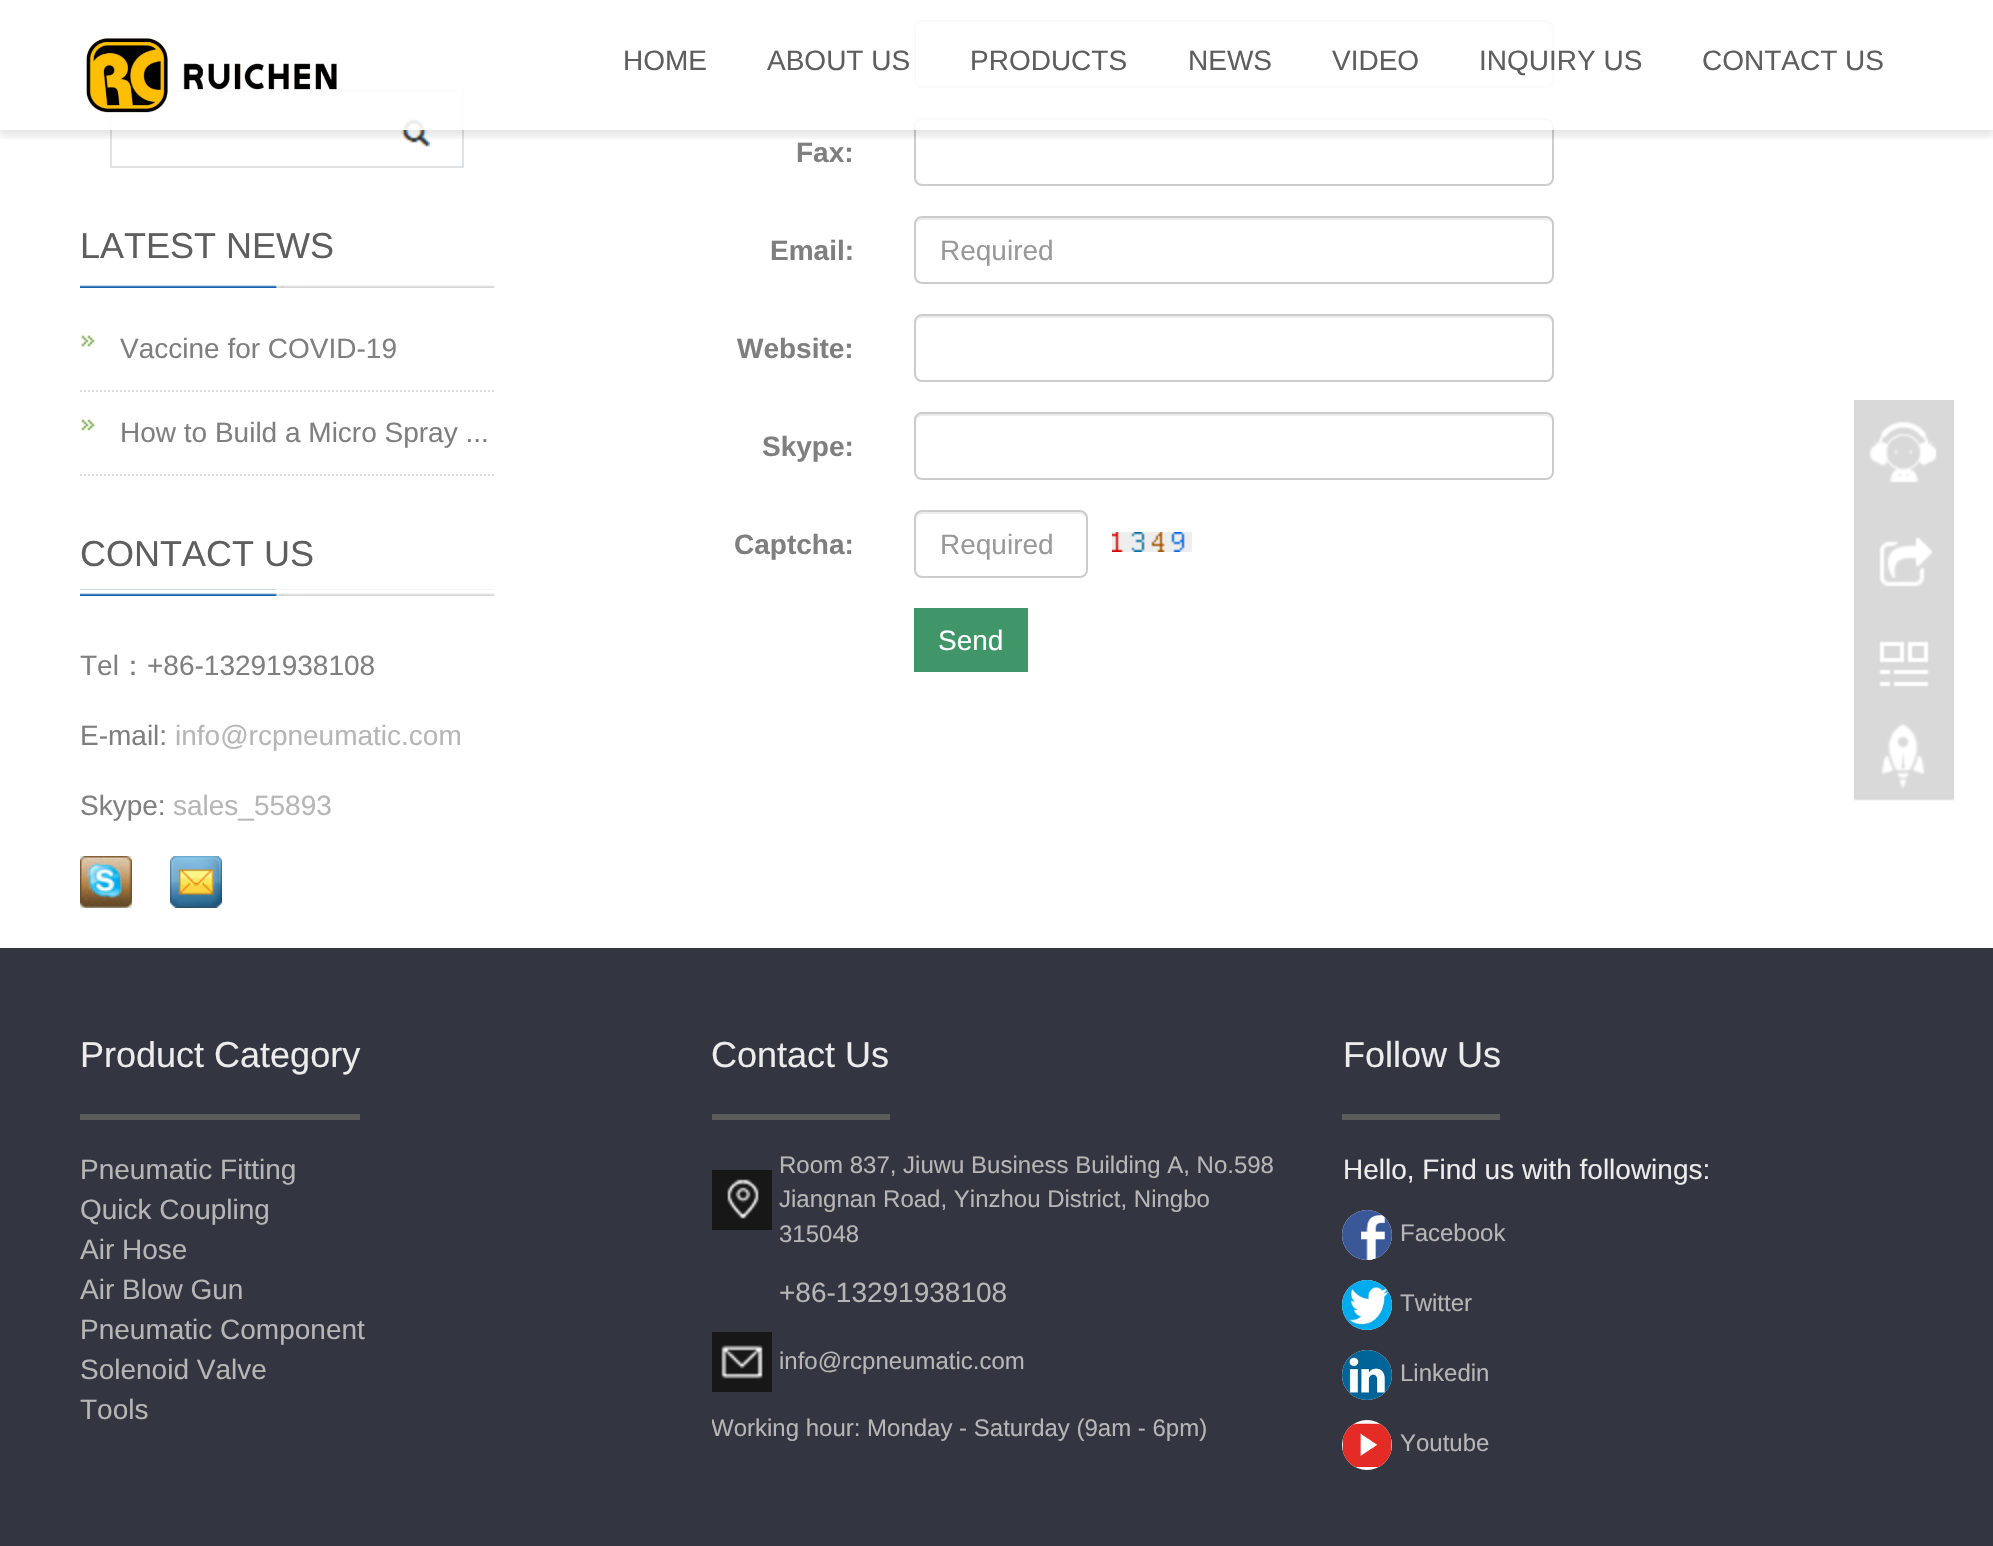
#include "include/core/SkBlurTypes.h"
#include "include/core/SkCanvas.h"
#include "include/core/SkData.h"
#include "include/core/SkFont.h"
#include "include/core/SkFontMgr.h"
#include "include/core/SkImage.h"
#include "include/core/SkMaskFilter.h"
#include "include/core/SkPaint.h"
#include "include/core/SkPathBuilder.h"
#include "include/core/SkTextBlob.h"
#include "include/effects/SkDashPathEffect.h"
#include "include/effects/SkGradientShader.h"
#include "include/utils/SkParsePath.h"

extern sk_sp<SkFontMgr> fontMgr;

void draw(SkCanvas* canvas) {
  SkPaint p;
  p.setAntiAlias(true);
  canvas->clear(SK_ColorWHITE);
  p.setColor(SkColorSetRGB(242, 242, 242));
  canvas->drawRect(SkRect::MakeLTRB(80, 24, 494, 26), p);
  p.setStyle(SkPaint::kStroke_Style);
  p.setStrokeWidth(2);
  p.setColor(SkColorSetRGB(223, 225, 227));
  canvas->drawRect(SkRect::MakeLTRB(111, 91, 463, 167), p);
  canvas->drawImageRect(SkImages::DeferredFromEncodedData(SkData::MakeFromFileName("images/2.png")), SkRect::MakeLTRB(401, 119, 430, 147), SkSamplingOptions());
  p.setStyle(SkPaint::kFill_Style);
  p.setColor(SkColorSetRGB(236, 236, 236));
  canvas->drawPath(SkPathBuilder().moveTo(922, 24).lineTo(1546, 24).cubicTo(1549, 24, 1552, 27, 1552, 30).lineTo(1552, 28).cubicTo(1552, 25, 1549, 22, 1546, 22).lineTo(922, 22).cubicTo(919, 22, 916, 25, 916, 28).lineTo(916, 30).cubicTo(916, 27, 919, 24, 922, 24).close().detach(), p);
  p.setStyle(SkPaint::kStroke_Style);
  p.setColor(SkColorSetRGB(204, 204, 204));
  canvas->drawRoundRect(SkRect::MakeLTRB(915, 21, 1553, 87), 7, 7, p);
  p.setStyle(SkPaint::kFill_Style);
  p.setColor(SkColorSetRGB(236, 236, 236));
  canvas->drawPath(SkPathBuilder().moveTo(922, 122).lineTo(1546, 122).cubicTo(1549, 122, 1552, 125, 1552, 128).lineTo(1552, 126).cubicTo(1552, 123, 1549, 120, 1546, 120).lineTo(922, 120).cubicTo(919, 120, 916, 123, 916, 126).lineTo(916, 128).cubicTo(916, 125, 919, 122, 922, 122).close().detach(), p);
  p.setStyle(SkPaint::kStroke_Style);
  p.setColor(SkColorSetRGB(204, 204, 204));
  canvas->drawRoundRect(SkRect::MakeLTRB(915, 119, 1553, 185), 7, 7, p);
  canvas->save();
  canvas->clipRect(SkRect::MakeLTRB(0, 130, 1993, 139));
  p.setStyle(SkPaint::kFill_Style);
  p.setColor(SkColorSetARGB(26, 0, 0, 0));
  p.setMaskFilter(SkMaskFilter::MakeBlur(kNormal_SkBlurStyle, 4));
  canvas->drawRect(SkRect::MakeLTRB(0, 6, 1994, 136), p);
  p.setMaskFilter(nullptr);
  canvas->restore();
  p.setColor(SkColorSetARGB(230, 255, 255, 255));
  canvas->drawRect(SkRect::MakeLTRB(80, 20, 1554, 130), p);
  canvas->drawImageRect(SkImages::DeferredFromEncodedData(SkData::MakeFromFileName("images/1.png")), SkRect::MakeLTRB(86, 38, 337, 113), SkSamplingOptions());
  canvas->drawImageRect(SkImages::DeferredFromEncodedData(SkData::MakeFromFileName("images/3.png")), SkRect::MakeLTRB(80, 282, 494, 288), SkSamplingOptions());
  canvas->drawImageRect(SkImages::DeferredFromEncodedData(SkData::MakeFromFileName("images/4.png")), SkRect::MakeLTRB(81, 335, 95, 347), SkSamplingOptions());
  p.setStyle(SkPaint::kStroke_Style);
  p.setColor(SkColorSetRGB(221, 221, 221));
  p.setPathEffect(SkDashPathEffect::Make({{2, 2}}, 0));
  canvas->drawPath(SkPathBuilder().moveTo(80, 391).lineTo(494, 391).detach(), p);
  p.setPathEffect(nullptr);
  canvas->drawImageRect(SkImages::DeferredFromEncodedData(SkData::MakeFromFileName("images/4.png")), SkRect::MakeLTRB(81, 419, 95, 431), SkSamplingOptions());
  p.setPathEffect(SkDashPathEffect::Make({{2, 2}}, 0));
  canvas->drawPath(SkPathBuilder().moveTo(80, 475).lineTo(494, 475).detach(), p);
  p.setPathEffect(nullptr);
  canvas->drawImageRect(SkImages::DeferredFromEncodedData(SkData::MakeFromFileName("images/5.png")), SkRect::MakeLTRB(80, 586, 494, 590), SkSamplingOptions());
  canvas->drawImageRect(SkImages::DeferredFromEncodedData(SkData::MakeFromFileName("images/3.png")), SkRect::MakeLTRB(80, 590, 494, 596), SkSamplingOptions());
  canvas->drawImageRect(SkImages::DeferredFromEncodedData(SkData::MakeFromFileName("images/6.png")), SkRect::MakeLTRB(80, 856, 132, 908), SkSamplingOptions());
  canvas->drawImageRect(SkImages::DeferredFromEncodedData(SkData::MakeFromFileName("images/7.png")), SkRect::MakeLTRB(170, 856, 222, 908), SkSamplingOptions());
  p.setStyle(SkPaint::kFill_Style);
  p.setColor(SkColorSetRGB(236, 236, 236));
  canvas->drawPath(SkPathBuilder().moveTo(922, 220).lineTo(1546, 220).cubicTo(1549, 220, 1552, 223, 1552, 226).lineTo(1552, 224).cubicTo(1552, 221, 1549, 218, 1546, 218).lineTo(922, 218).cubicTo(919, 218, 916, 221, 916, 224).lineTo(916, 226).cubicTo(916, 223, 919, 220, 922, 220).close().detach(), p);
  p.setStyle(SkPaint::kStroke_Style);
  p.setColor(SkColorSetRGB(204, 204, 204));
  canvas->drawRoundRect(SkRect::MakeLTRB(915, 217, 1553, 283), 7, 7, p);
  p.setStyle(SkPaint::kFill_Style);
  p.setColor(SkColorSetRGB(236, 236, 236));
  canvas->drawPath(SkPathBuilder().moveTo(922, 318).lineTo(1546, 318).cubicTo(1549, 318, 1552, 321, 1552, 324).lineTo(1552, 322).cubicTo(1552, 319, 1549, 316, 1546, 316).lineTo(922, 316).cubicTo(919, 316, 916, 319, 916, 322).lineTo(916, 324).cubicTo(916, 321, 919, 318, 922, 318).close().detach(), p);
  p.setStyle(SkPaint::kStroke_Style);
  p.setColor(SkColorSetRGB(204, 204, 204));
  canvas->drawRoundRect(SkRect::MakeLTRB(915, 315, 1553, 381), 7, 7, p);
  p.setStyle(SkPaint::kFill_Style);
  p.setColor(SkColorSetRGB(236, 236, 236));
  canvas->drawPath(SkPathBuilder().moveTo(922, 416).lineTo(1546, 416).cubicTo(1549, 416, 1552, 419, 1552, 422).lineTo(1552, 420).cubicTo(1552, 417, 1549, 414, 1546, 414).lineTo(922, 414).cubicTo(919, 414, 916, 417, 916, 420).lineTo(916, 422).cubicTo(916, 419, 919, 416, 922, 416).close().detach(), p);
  p.setStyle(SkPaint::kStroke_Style);
  p.setColor(SkColorSetRGB(204, 204, 204));
  canvas->drawRoundRect(SkRect::MakeLTRB(915, 413, 1553, 479), 7, 7, p);
  p.setStyle(SkPaint::kFill_Style);
  p.setColor(SkColorSetRGB(236, 236, 236));
  canvas->drawPath(SkPathBuilder().moveTo(922, 514).lineTo(1080, 514).cubicTo(1083, 514, 1086, 517, 1086, 520).lineTo(1086, 518).cubicTo(1086, 515, 1083, 512, 1080, 512).lineTo(922, 512).cubicTo(919, 512, 916, 515, 916, 518).lineTo(916, 520).cubicTo(916, 517, 919, 514, 922, 514).close().detach(), p);
  p.setStyle(SkPaint::kStroke_Style);
  p.setColor(SkColorSetRGB(204, 204, 204));
  canvas->drawRoundRect(SkRect::MakeLTRB(915, 511, 1087, 577), 7, 7, p);
  canvas->drawImageRect(SkImages::DeferredFromEncodedData(SkData::MakeFromFileName("images/8.png")), SkRect::MakeLTRB(1112, 532, 1192, 552), SkSamplingOptions());
  p.setStyle(SkPaint::kFill_Style);
  p.setColor(SkColorSetRGB(64, 150, 105));
  canvas->drawRect(SkRect::MakeLTRB(914, 608, 1028, 672), p);
  canvas->drawImageRect(SkImages::DeferredFromEncodedData(SkData::MakeFromFileName("images/9.png")), SkRect::MakeLTRB(1854, 400, 1954, 801), SkSamplingOptions());
  p.setColor(SkColorSetRGB(51, 54, 65));
  canvas->drawRect(SkRect::MakeLTRB(0, 948, 1993, 1546), p);
  p.setColor(SkColorSetRGB(92, 92, 92));
  canvas->drawRect(SkRect::MakeLTRB(80, 1114, 360, 1120), p);
  canvas->drawRect(SkRect::MakeLTRB(712, 1114, 890, 1120), p);
  canvas->drawImageRect(SkImages::DeferredFromEncodedData(SkData::MakeFromFileName("images/10.png")), SkRect::MakeLTRB(712, 1170, 772, 1230), SkSamplingOptions());
  canvas->drawImageRect(SkImages::DeferredFromEncodedData(SkData::MakeFromFileName("images/11.png")), SkRect::MakeLTRB(712, 1332, 772, 1392), SkSamplingOptions());
  canvas->drawRect(SkRect::MakeLTRB(1342, 1114, 1500, 1120), p);
  p.setColor(SK_ColorWHITE);
  canvas->drawCircle(1367, 1235, 25, p);
  canvas->drawImageRect(SkImages::DeferredFromEncodedData(SkData::MakeFromFileName("images/12.png")), SkRect::MakeLTRB(1342, 1210, 1392, 1260), SkSamplingOptions());
  canvas->drawCircle(1367, 1305, 25, p);
  canvas->drawImageRect(SkImages::DeferredFromEncodedData(SkData::MakeFromFileName("images/13.png")), SkRect::MakeLTRB(1342, 1280, 1392, 1330), SkSamplingOptions());
  canvas->drawCircle(1367, 1375, 25, p);
  canvas->drawImageRect(SkImages::DeferredFromEncodedData(SkData::MakeFromFileName("images/14.png")), SkRect::MakeLTRB(1342, 1350, 1392, 1400), SkSamplingOptions());
  canvas->drawCircle(1367, 1445, 25, p);
  canvas->drawImageRect(SkImages::DeferredFromEncodedData(SkData::MakeFromFileName("images/15.png")), SkRect::MakeLTRB(1342, 1423, 1392, 1468), SkSamplingOptions());
  SkFont font1(fontMgr->matchFamilyStyle("Liberation Sans", SkFontStyle::Normal()), 28);
  font1.setSubpixel(true);
  p.setColor(SkColorSetRGB(94, 94, 94));
  canvas->drawString("HOME", 623, 70, font1, p);
  canvas->drawString("ABOUT US", 767, 70, font1, p);
  canvas->drawString("PRODUCTS", 970, 70, font1, p);
  canvas->drawString("NEWS", 1188, 70, font1, p);
  canvas->drawString("VIDEO", 1332, 70, font1, p);
  canvas->drawString("INQUIRY US", 1479, 70, font1, p);
  canvas->drawString("CONTACT US", 1702, 70, font1, p);
  SkFont font2(fontMgr->matchFamilyStyle("Liberation Sans", SkFontStyle::Normal()), 36);
  font2.setSubpixel(true);
  canvas->drawString("LATEST NEWS", 80, 258, font2, p);
  p.setColor(SkColorSetRGB(127, 127, 128));
  canvas->drawString("Vaccine for COVID-19", 120, 358, font1, p);
  canvas->drawString("How to Build a Micro Spray ...", 120, 442, font1, p);
  p.setColor(SkColorSetRGB(94, 94, 94));
  canvas->drawString("CONTACT US", 80, 566, font2, p);
  p.setColor(SkColorSetRGB(127, 127, 128));
  canvas->drawString("Tel", 80, 675, font1, p);
  SkFont font3(fontMgr->matchFamilyStyle("WenQuanYi Zen Hei", SkFontStyle(500, SkFontStyle::kNormal_Width, SkFontStyle::kUpright_Slant)), 28);
  font3.setSubpixel(true);
  canvas->drawString("：", 119, 675, font3, p);
  canvas->drawString("+86-13291938108", 147, 675, font1, p);
  canvas->drawString("E-mail:", 80, 745, font1, p);
  p.setColor(SkColorSetRGB(182, 182, 182));
  canvas->drawString("info@rcpneumatic.com", 175, 745, font1, p);
  p.setColor(SkColorSetRGB(127, 127, 128));
  canvas->drawString("Skype:", 80, 815, font1, p);
  p.setColor(SkColorSetRGB(182, 182, 182));
  canvas->drawString("sales_55893", 173, 815, font1, p);
  SkFont font4(fontMgr->matchFamilyStyle("Liberation Sans", SkFontStyle::Bold()), 28);
  font4.setSubpixel(true);
  p.setColor(SkColorSetRGB(127, 127, 128));
  canvas->drawString("Fax:", 796, 162, font4, p);
  canvas->drawString("Email:", 770, 260, font4, p);
  p.setColor(SkColorSetRGB(153, 153, 153));
  canvas->drawString("Required", 940, 260, font1, p);
  p.setColor(SkColorSetRGB(127, 127, 128));
  canvas->drawString("Website:", 737, 358, font4, p);
  canvas->drawString("Skype:", 762, 456, font4, p);
  canvas->drawString("Captcha:", 734, 554, font4, p);
  p.setColor(SkColorSetRGB(153, 153, 153));
  canvas->drawString("Required", 940, 554, font1, p);
  p.setColor(SK_ColorWHITE);
  canvas->drawString("Send", 938, 650, font1, p);
  p.setColor(SkColorSetRGB(236, 236, 236));
  canvas->drawString("Product Category", 80, 1067, font2, p);
  p.setColor(SkColorSetRGB(182, 182, 182));
  canvas->drawString("Pneumatic Fitting", 80, 1179, font1, p);
  canvas->drawString("Quick Coupling", 80, 1219, font1, p);
  canvas->drawString("Air Hose", 80, 1259, font1, p);
  canvas->drawString("Air Blow Gun", 80, 1299, font1, p);
  canvas->drawString("Pneumatic Component", 80, 1339, font1, p);
  canvas->drawString("Solenoid Valve", 80, 1379, font1, p);
  canvas->drawString("Tools", 80, 1419, font1, p);
  p.setColor(SkColorSetRGB(236, 236, 236));
  canvas->drawString("Contact Us", 711, 1067, font2, p);
  SkFont font5(fontMgr->matchFamilyStyle("Liberation Sans", SkFontStyle::Normal()), 24);
  font5.setSubpixel(true);
  p.setColor(SkColorSetRGB(182, 182, 182));
  canvas->drawString("Room 837, Jiuwu Business Building A, No.598", 779, 1173, font5, p);
  canvas->drawString("Jiangnan Road, Yinzhou District, Ningbo", 779, 1207, font5, p);
  canvas->drawString("315048", 779, 1242, font5, p);
  canvas->drawString("+86-13291938108", 779, 1302, font1, p);
  canvas->drawString("info@rcpneumatic.com", 779, 1369, font5, p);
  canvas->save();
  canvas->clipRect(SkRect::MakeLTRB(712, 1018, 1282, 1466));
  canvas->drawString("Working hour: Monday - Saturday (9am - 6pm)", 711, 1436, font5, p);
  canvas->restore();
  p.setColor(SkColorSetRGB(236, 236, 236));
  canvas->drawString("Follow Us", 1343, 1067, font2, p);
  canvas->drawString("Hello, Find us with followings:", 1343, 1179, font1, p);
  p.setColor(SkColorSetRGB(182, 182, 182));
  canvas->drawString("Facebook", 1400, 1241, font5, p);
  canvas->drawString("Twitter", 1400, 1311, font5, p);
  canvas->drawString("Linkedin", 1400, 1381, font5, p);
  canvas->drawString("Youtube", 1400, 1451, font5, p);
}
